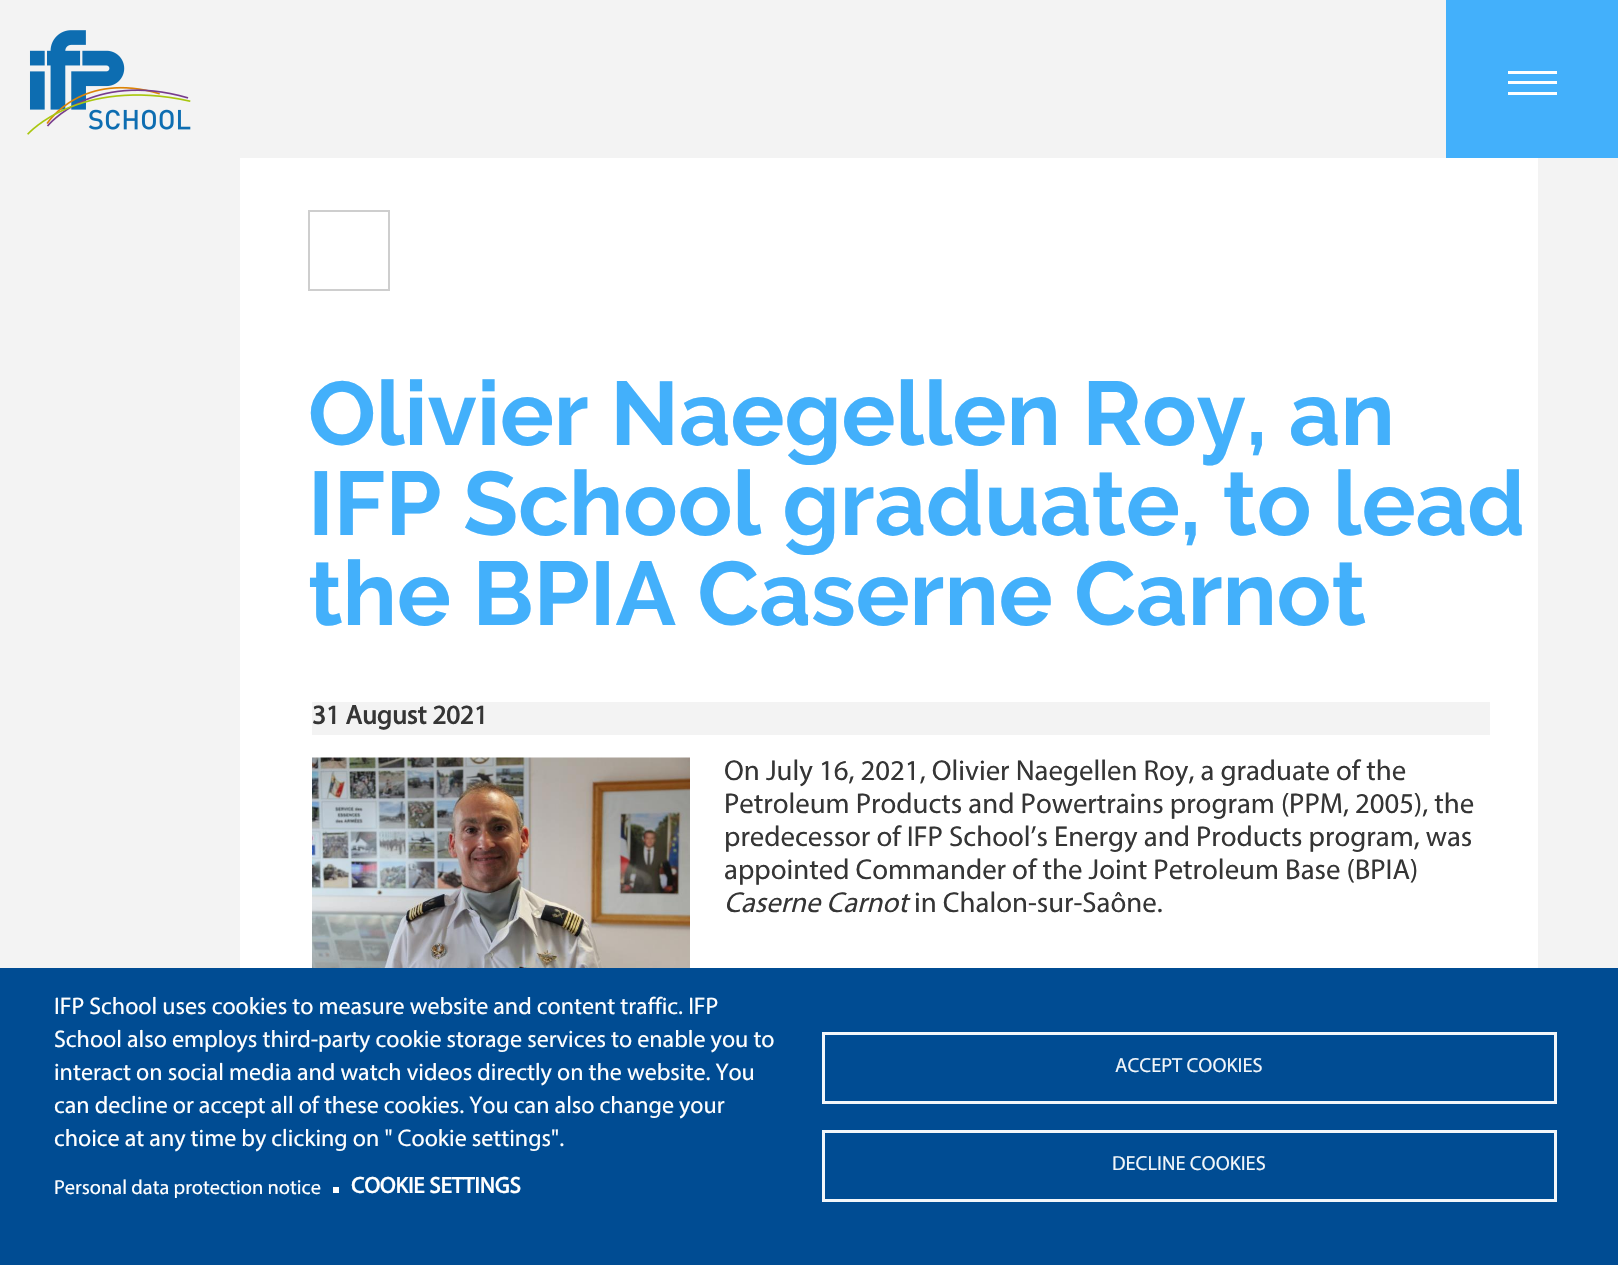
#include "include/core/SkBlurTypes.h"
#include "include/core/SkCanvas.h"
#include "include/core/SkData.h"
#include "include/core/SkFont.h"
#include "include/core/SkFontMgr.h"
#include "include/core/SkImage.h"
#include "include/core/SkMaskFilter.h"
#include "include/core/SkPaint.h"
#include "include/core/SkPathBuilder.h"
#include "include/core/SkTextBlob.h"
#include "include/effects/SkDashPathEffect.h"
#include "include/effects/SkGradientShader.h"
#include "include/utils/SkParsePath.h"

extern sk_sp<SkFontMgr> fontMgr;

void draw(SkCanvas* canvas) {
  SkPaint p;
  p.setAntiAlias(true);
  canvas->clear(SkColorSetRGB(243, 243, 243));
  p.setColor(SK_ColorWHITE);
  canvas->drawRect(SkRect::MakeLTRB(240, 158, 1538, 968), p);
  p.setStyle(SkPaint::kStroke_Style);
  p.setStrokeWidth(2);
  p.setColor(SkColorSetRGB(206, 206, 206));
  canvas->drawRect(SkRect::MakeLTRB(309, 211, 389, 290), p);
  p.setStyle(SkPaint::kFill_Style);
  p.setColor(SkColorSetRGB(243, 243, 243));
  canvas->drawRect(SkRect::MakeLTRB(312, 702, 1490, 735), p);
  canvas->drawImageRect(SkImages::DeferredFromEncodedData(SkData::MakeFromFileName("images/1.png")), SkRect::MakeLTRB(312, 757, 690, 968), SkSamplingOptions());
  canvas->drawImageRect(SkImages::DeferredFromEncodedData(SkData::MakeFromFileName("images/2.png")), SkRect::MakeLTRB(27, 30, 191, 135), SkSamplingOptions());
  p.setColor(SkColorSetRGB(67, 176, 251));
  canvas->drawRect(SkRect::MakeLTRB(1446, 0, 1618, 158), p);
  p.setColor(SK_ColorWHITE);
  canvas->drawRect(SkRect::MakeLTRB(1508, 81, 1557, 84), p);
  canvas->drawRect(SkRect::MakeLTRB(1508, 71, 1557, 74), p);
  canvas->drawRect(SkRect::MakeLTRB(1508, 92, 1557, 95), p);
  p.setColor(SkColorSetRGB(0, 76, 147));
  canvas->drawRect(SkRect::MakeLTRB(0, 968, 1618, 1265), p);
  p.setColor(SK_ColorWHITE);
  canvas->drawRect(SkRect::MakeLTRB(333, 1187, 339, 1193), p);
  p.setStyle(SkPaint::kStroke_Style);
  p.setStrokeWidth(3);
  p.setColor(SkColorSetRGB(242, 246, 250));
  canvas->drawRect(SkRect::MakeLTRB(823.5f, 1033.5f, 1555.5f, 1102.5f), p);
  canvas->drawRect(SkRect::MakeLTRB(823.5f, 1131.5f, 1555.5f, 1200.5f), p);
  SkFont font1(fontMgr->matchFamilyStyle("Raleway", SkFontStyle::Bold()), 90);
  font1.setSubpixel(true);
  p.setStyle(SkPaint::kFill_Style);
  p.setColor(SkColorSetRGB(67, 176, 251));
  canvas->drawString("Olivier Naegellen Roy, an", 308, 445, font1, p);
  canvas->drawString("IFP School graduate, to lead", 308, 535, font1, p);
  canvas->drawString("the BPIA Caserne Carnot", 308, 625, font1, p);
  SkFont font2(fontMgr->matchFamilyStyle("Myriad", SkFontStyle::Bold()), 27);
  font2.setSubpixel(true);
  p.setColor(SkColorSetRGB(53, 53, 53));
  canvas->drawString("31 August 2021", 312, 724, font2, p);
  SkFont font3(fontMgr->matchFamilyStyle("Myriad", SkFontStyle::Normal()), 28.8f);
  font3.setSubpixel(true);
  canvas->drawString("On July 16, 2021, Olivier Naegellen Roy, a graduate of the", 724, 780, font3, p);
  canvas->drawString("Petroleum Products and Powertrains program (PPM, 2005), the", 724, 813, font3, p);
  canvas->drawString("predecessor of IFP School’s Energy and Products program, was", 724, 846, font3, p);
  canvas->drawString("appointed Commander of the Joint Petroleum Base (BPIA)", 724, 879, font3, p);
  SkFont font4(fontMgr->matchFamilyStyle("Myriad", SkFontStyle::Italic()), 28.8f);
  font4.setSubpixel(true);
  canvas->drawString("Caserne Carnot", 724, 912, font4, p);
  canvas->drawString("in Chalon-sur-Saône.", 914, 912, font3, p);
  SkFont font5(fontMgr->matchFamilyStyle("Myriad", SkFontStyle::Normal()), 24);
  font5.setSubpixel(true);
  p.setColor(SK_ColorWHITE);
  canvas->drawString("IFP School uses cookies to measure website and content traffic. IFP", 54, 1014, font5, p);
  canvas->drawString("School also employs third-party cookie storage services to enable you to", 54, 1047, font5, p);
  canvas->drawString("interact on social media and watch videos directly on the website. You", 54, 1080, font5, p);
  canvas->drawString("can decline or accept all of these cookies. You can also change your", 54, 1113, font5, p);
  canvas->drawString("choice at any time by clicking on \" Cookie settings\".", 54, 1146, font5, p);
  SkFont font6(fontMgr->matchFamilyStyle("Myriad", SkFontStyle::Normal()), 20.4f);
  font6.setSubpixel(true);
  canvas->drawString("Personal data protection notice", 54, 1194, font6, p);
  SkFont font7(fontMgr->matchFamilyStyle("Myriad", SkFontStyle::Bold()), 22.75f);
  font7.setSubpixel(true);
  canvas->drawString("COOKIE SETTINGS", 351, 1193, font7, p);
  p.setColor(SkColorSetRGB(242, 246, 250));
  canvas->drawString("ACCEPT COOKIES", 1115, 1072, font6, p);
  canvas->drawString("DECLINE COOKIES", 1112, 1170, font6, p);
}
